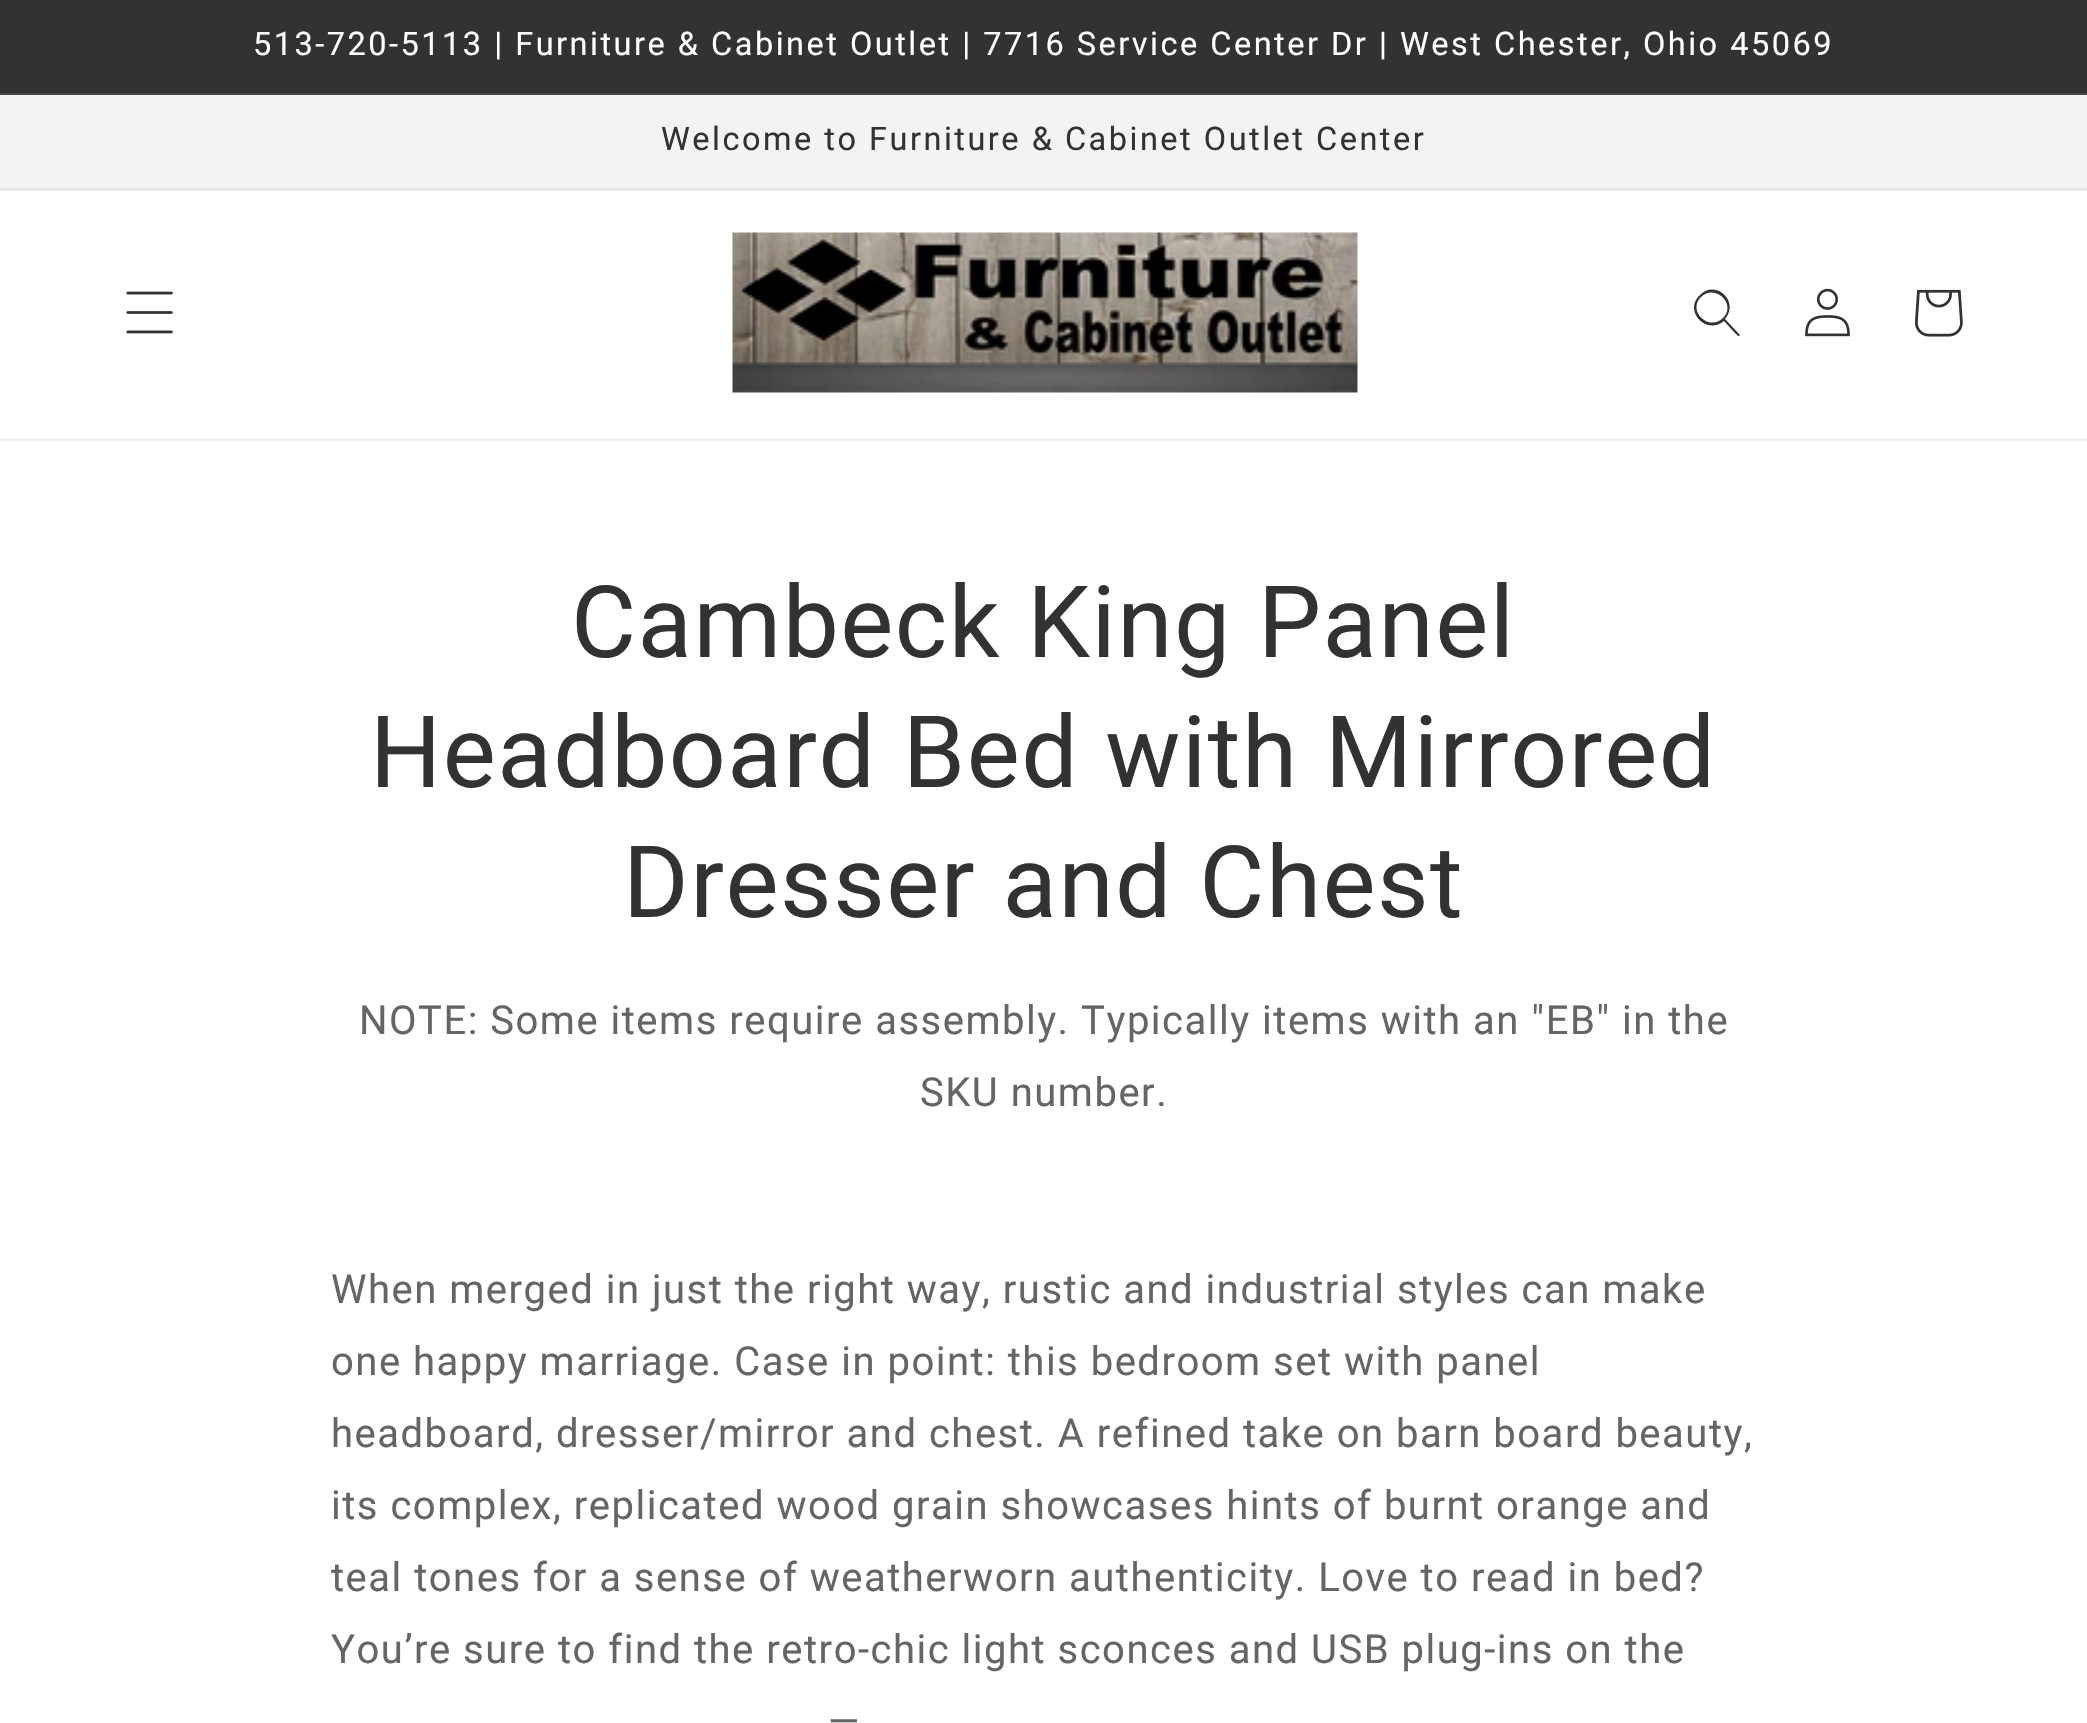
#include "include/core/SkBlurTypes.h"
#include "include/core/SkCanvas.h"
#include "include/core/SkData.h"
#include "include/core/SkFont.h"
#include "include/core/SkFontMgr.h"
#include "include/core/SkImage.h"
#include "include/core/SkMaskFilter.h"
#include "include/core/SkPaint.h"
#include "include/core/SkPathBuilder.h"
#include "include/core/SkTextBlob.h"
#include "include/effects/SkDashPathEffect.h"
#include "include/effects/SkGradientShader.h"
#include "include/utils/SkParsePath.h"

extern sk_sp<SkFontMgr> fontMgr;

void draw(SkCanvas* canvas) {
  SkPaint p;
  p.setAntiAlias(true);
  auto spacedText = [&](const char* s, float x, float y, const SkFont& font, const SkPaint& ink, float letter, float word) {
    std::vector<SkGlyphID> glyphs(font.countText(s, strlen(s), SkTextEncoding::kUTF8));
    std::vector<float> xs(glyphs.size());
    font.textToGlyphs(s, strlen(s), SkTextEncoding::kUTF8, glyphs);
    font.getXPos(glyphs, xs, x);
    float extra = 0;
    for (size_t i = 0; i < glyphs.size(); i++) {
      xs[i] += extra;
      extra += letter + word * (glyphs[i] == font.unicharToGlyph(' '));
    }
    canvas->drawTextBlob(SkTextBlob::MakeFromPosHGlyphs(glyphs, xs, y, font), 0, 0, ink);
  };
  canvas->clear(SK_ColorWHITE);
  p.setColor(SkColorSetRGB(239, 239, 239));
  canvas->drawRect(SkRect::MakeLTRB(0, 190, 2087, 191), p);
  p.setColor(SkColorSetRGB(51, 50, 50));
  canvas->drawRect(SkRect::MakeLTRB(0, 0, 2087, 93), p);
  p.setColor(SkColorSetRGB(67, 66, 66));
  canvas->drawRect(SkRect::MakeLTRB(0, 93, 2087, 95), p);
  p.setColor(SkColorSetRGB(243, 243, 243));
  canvas->drawRect(SkRect::MakeLTRB(0, 95, 2087, 188), p);
  p.setColor(SkColorSetRGB(228, 228, 228));
  canvas->drawRect(SkRect::MakeLTRB(0, 188, 2087, 190), p);
  p.setColor(SkColorSetRGB(239, 239, 239));
  canvas->drawRect(SkRect::MakeLTRB(0, 438, 2087, 441), p);
  canvas->drawImageRect(SkImages::DeferredFromEncodedData(SkData::MakeFromFileName("images/1.png")), SkRect::MakeLTRB(126, 291, 173, 334), SkSamplingOptions());
  canvas->drawImageRect(SkImages::DeferredFromEncodedData(SkData::MakeFromFileName("images/2.png")), SkRect::MakeLTRB(732, 232, 1358, 393), SkSamplingOptions());
  p.setColor(SkColorSetRGB(51, 50, 50));
  canvas->drawPath(SkPathBuilder(SkPathFillType::kEvenOdd).moveTo(1723, 318).cubicTo(1709, 332, 1687, 311, 1701, 297).cubicTo(1715, 283, 1737, 304, 1723, 318).close().moveTo(1724, 321).cubicTo(1706, 336, 1683, 310, 1700, 295).cubicTo(1716, 279, 1740, 302, 1725, 319).lineTo(1740, 335).lineTo(1739, 336).cubicTo(1738, 337, 1726, 323, 1724, 321).close().detach(), p);
  canvas->drawImageRect(SkImages::DeferredFromEncodedData(SkData::MakeFromFileName("images/3.png")), SkRect::MakeLTRB(1805, 288, 1850, 337), SkSamplingOptions());
  canvas->drawImageRect(SkImages::DeferredFromEncodedData(SkData::MakeFromFileName("images/4.png")), SkRect::MakeLTRB(1915, 289, 1963, 337), SkSamplingOptions());
  SkFont font1(fontMgr->matchFamilyStyle("Roboto", SkFontStyle::Normal()), 32.5f);
  font1.setSubpixel(true);
  p.setColor(SK_ColorWHITE);
  spacedText("513-720-5113 | Furniture & Cabinet Outlet | 7716 Service Center Dr | West Chester, Ohio 45069", 253, 55, font1, p, 2.5f, 0);
  p.setColor(SkColorSetRGB(51, 50, 50));
  spacedText("Welcome to Furniture & Cabinet Outlet Center", 661, 150, font1, p, 2.5f, 0);
  SkFont font2(fontMgr->matchFamilyStyle("Roboto", SkFontStyle::Normal()), 100);
  font2.setSubpixel(true);
  spacedText("Cambeck King Panel", 571, 657, font2, p, 1.5f, 0);
  spacedText("Headboard Bed with Mirrored", 370, 787, font2, p, 1.5f, 0);
  spacedText("Dresser and Chest", 623, 917, font2, p, 1.5f, 0);
  SkFont font3(fontMgr->matchFamilyStyle("Roboto", SkFontStyle::Normal()), 40);
  font3.setSubpixel(true);
  p.setColor(SkColorSetRGB(102, 101, 101));
  spacedText("NOTE: Some items require assembly. Typically items with an \"EB\" in the", 359, 1034, font3, p, 1.5f, 0);
  spacedText("SKU number.", 920, 1106, font3, p, 1.5f, 0);
  spacedText("When merged in just the right way, rustic and industrial styles can make", 331, 1303, font3, p, 1.5f, 0);
  spacedText("one happy marriage. Case in point: this bedroom set with panel", 331, 1375, font3, p, 1.5f, 0);
  spacedText("headboard, dresser/mirror and chest. A refined take on barn board beauty,", 331, 1447, font3, p, 1.5f, 0);
  spacedText("its complex, replicated wood grain showcases hints of burnt orange and", 331, 1519, font3, p, 1.5f, 0);
  spacedText("teal tones for a sense of weatherworn authenticity. Love to read in bed?", 331, 1591, font3, p, 1.5f, 0);
  spacedText("You’re sure to find the retro-chic light sconces and USB plug-ins on the", 331, 1663, font3, p, 1.5f, 0);
  spacedText("—", 828, 1735, font3, p, 1.5f, 0);
}
